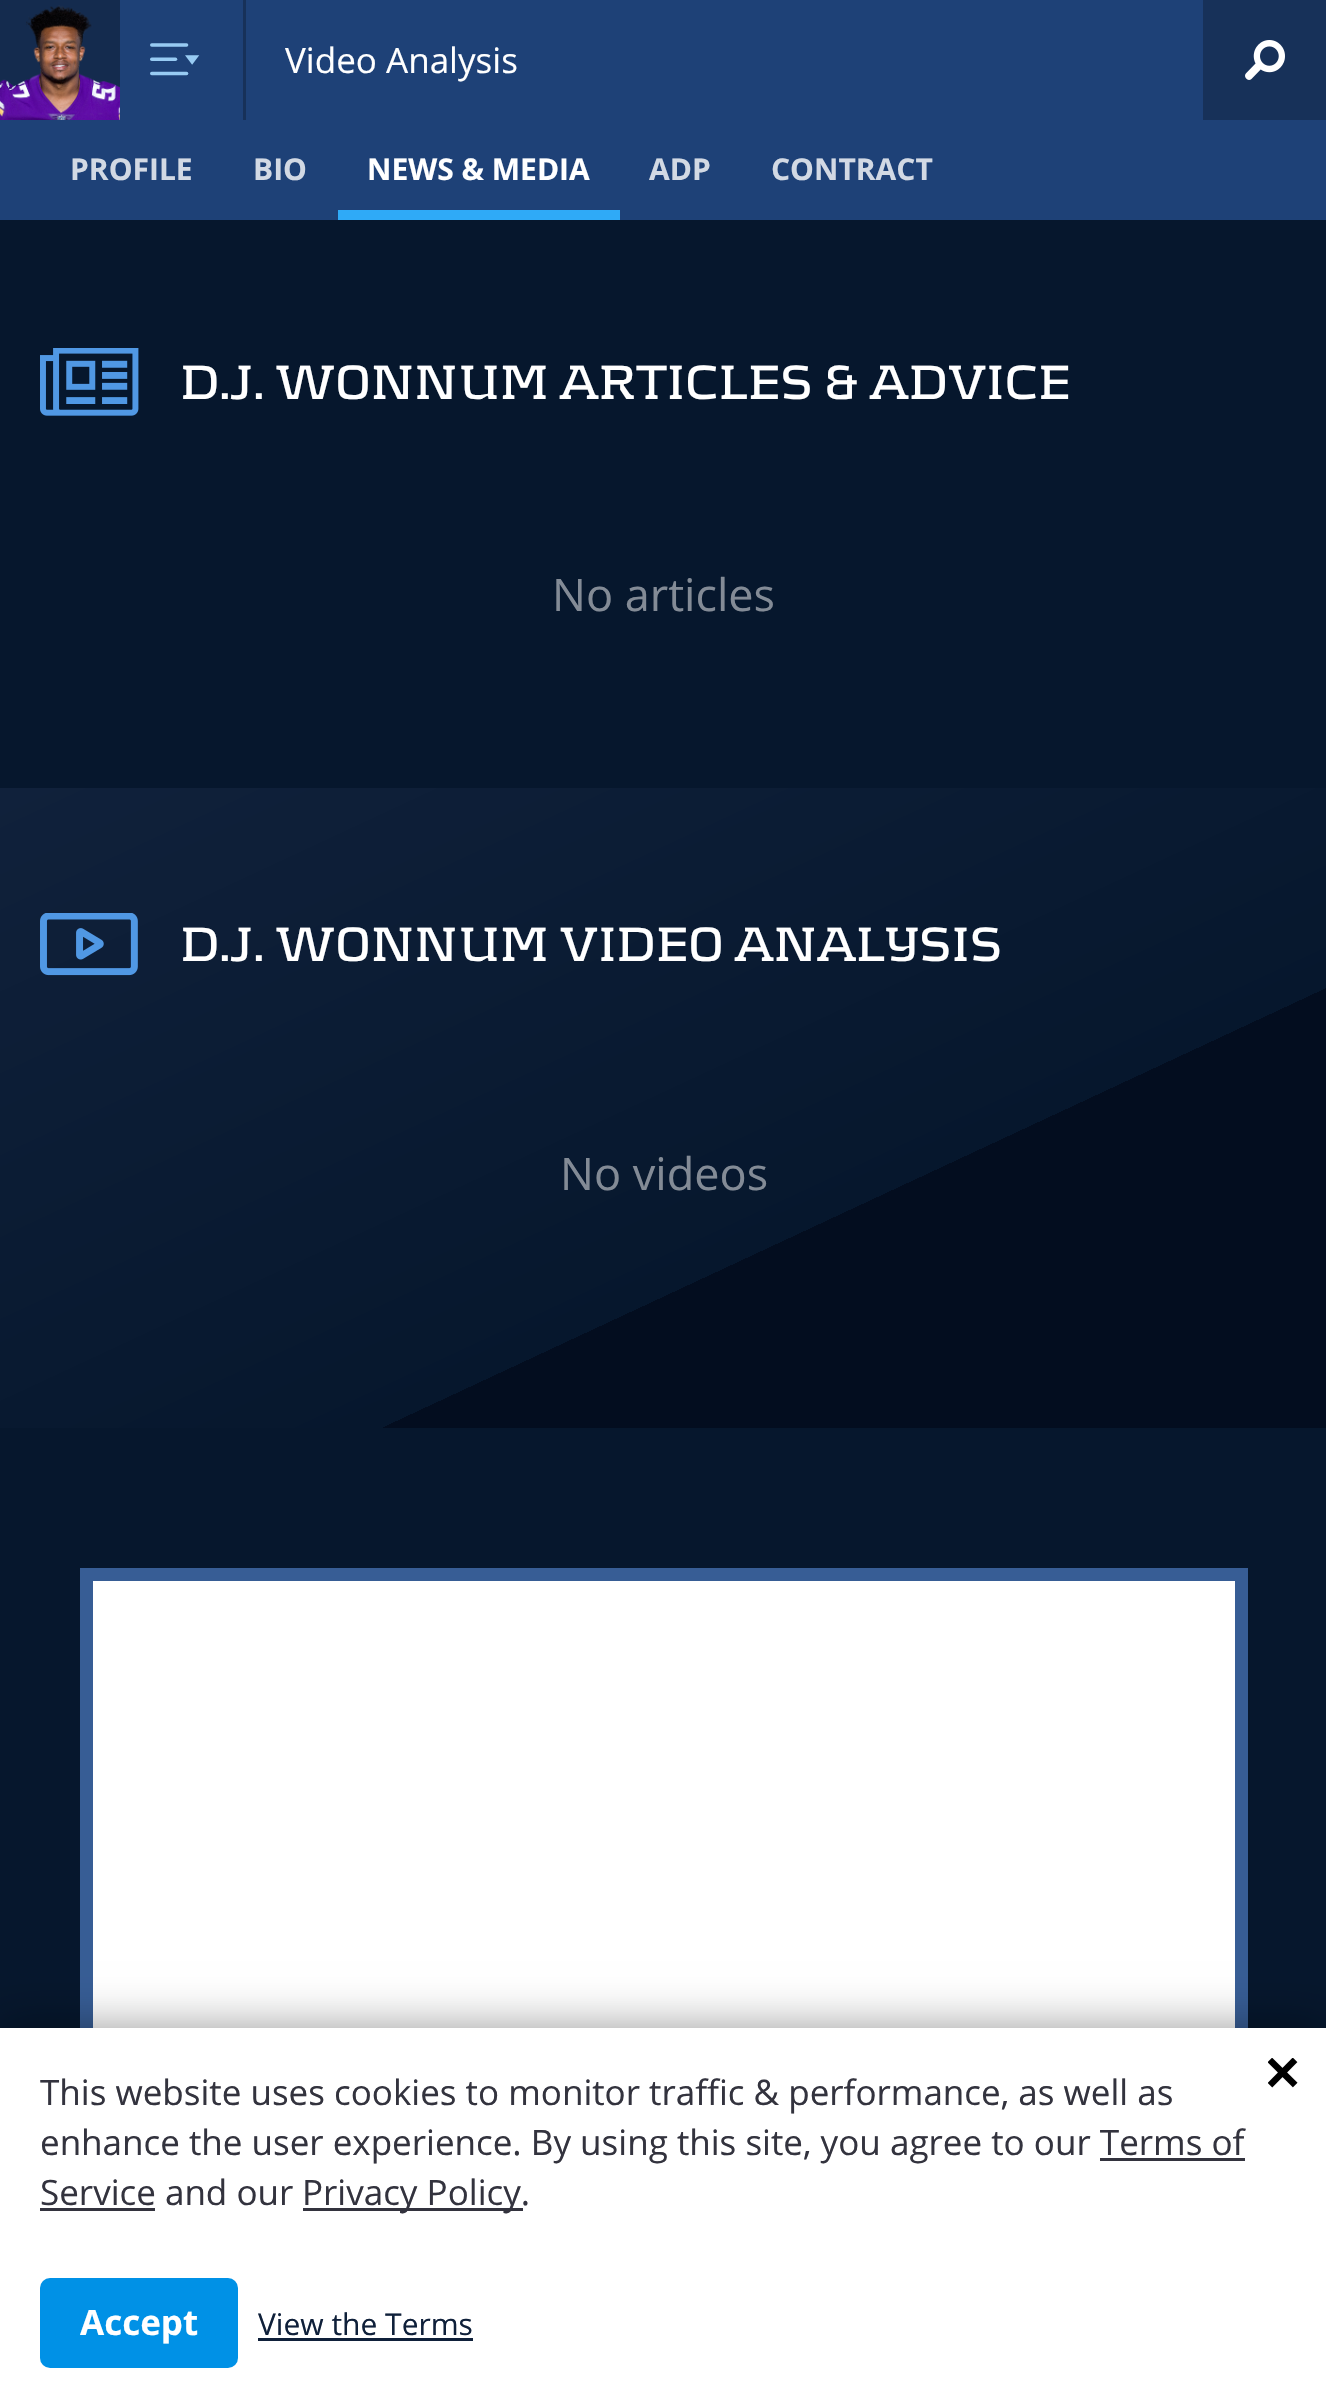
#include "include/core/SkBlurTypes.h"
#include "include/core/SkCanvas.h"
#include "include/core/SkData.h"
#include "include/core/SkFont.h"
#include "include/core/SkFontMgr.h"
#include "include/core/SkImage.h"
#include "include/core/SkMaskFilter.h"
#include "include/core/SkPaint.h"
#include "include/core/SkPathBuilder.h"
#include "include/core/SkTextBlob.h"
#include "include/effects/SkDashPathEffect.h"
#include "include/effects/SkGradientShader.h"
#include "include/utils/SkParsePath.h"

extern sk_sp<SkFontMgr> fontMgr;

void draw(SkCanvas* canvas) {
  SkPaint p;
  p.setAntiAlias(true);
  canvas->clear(SkColorSetRGB(6, 23, 45));
  p.setColor(SkColorSetRGB(20, 43, 78));
  canvas->drawRect(SkRect::MakeLTRB(0, 0, 120, 120), p);
  canvas->drawImageRect(SkImages::DeferredFromEncodedData(SkData::MakeFromFileName("images/1.png")), SkRect::MakeLTRB(0, 5, 120, 120), SkSamplingOptions());
  p.setColor(SkColorSetRGB(30, 65, 119));
  canvas->drawRect(SkRect::MakeLTRB(120, 0, 1203, 120), p);
  p.setColor(SkColorSetRGB(23, 49, 89));
  canvas->drawRect(SkRect::MakeLTRB(243, 0, 246, 120), p);
  canvas->drawImageRect(SkImages::DeferredFromEncodedData(SkData::MakeFromFileName("images/2.png")), SkRect::MakeLTRB(150, 43, 200, 76), SkSamplingOptions());
  canvas->drawRect(SkRect::MakeLTRB(1203, 0, 1326, 120), p);
  canvas->drawImageRect(SkImages::DeferredFromEncodedData(SkData::MakeFromFileName("images/3.png")), SkRect::MakeLTRB(1245, 40, 1285, 80), SkSamplingOptions());
  p.setColor(SkColorSetRGB(30, 65, 119));
  canvas->drawRect(SkRect::MakeLTRB(0, 120, 1326, 220), p);
  p.setColor(SkColorSetRGB(47, 170, 247));
  canvas->drawRect(SkRect::MakeLTRB(338, 210, 620, 220), p);
  canvas->drawImageRect(SkImages::DeferredFromEncodedData(SkData::MakeFromFileName("images/4.png")), SkRect::MakeLTRB(40, 348, 139, 416), SkSamplingOptions());
  {
    const SkColor colors[] = {SkColorSetRGB(3, 13, 31), SkColorSetRGB(6, 23, 45), SkColorSetRGB(16, 33, 59)};
    const float stops[] = {0.35f, 0.35f, 1};
    const SkPoint ends[] = {{905, 1625}, {423, 590}};
    p.setShader(SkGradientShader::MakeLinear(ends, colors, stops, 3, SkTileMode::kClamp));
    p.setAlpha(255);
  }
  canvas->drawRect(SkRect::MakeLTRB(0, 788, 1326, 1428), p);
  canvas->drawImageRect(SkImages::DeferredFromEncodedData(SkData::MakeFromFileName("images/5.png")), SkRect::MakeLTRB(40, 913, 138, 976), SkSamplingOptions());
  p.setShader(nullptr);
  p.setColor(SK_ColorWHITE);
  canvas->drawRect(SkRect::MakeLTRB(93, 1581, 1235, 2028), p);
  p.setStyle(SkPaint::kStroke_Style);
  p.setStrokeWidth(13);
  p.setColor(SkColorSetRGB(55, 93, 149));
  canvas->drawRect(SkRect::MakeLTRB(86.5f, 1574.5f, 1241.5f, 2361.5f), p);
  p.setStyle(SkPaint::kFill_Style);
  p.setColor(SkColorSetARGB(102, 0, 0, 0));
  p.setMaskFilter(SkMaskFilter::MakeBlur(kNormal_SkBlurStyle, 22.5f));
  canvas->drawRect(SkRect::MakeLTRB(0, 2028, 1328, 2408), p);
  p.setMaskFilter(nullptr);
  p.setColor(SK_ColorWHITE);
  canvas->drawRect(SkRect::MakeLTRB(0, 2028, 1326, 2407), p);
  p.setColor(SkColorSetRGB(51, 51, 62));
  canvas->drawRect(SkRect::MakeLTRB(1100, 2158, 1245, 2161), p);
  canvas->drawRect(SkRect::MakeLTRB(40, 2208, 155, 2211), p);
  canvas->drawRect(SkRect::MakeLTRB(303, 2208, 523, 2211), p);
  canvas->drawImageRect(SkImages::DeferredFromEncodedData(SkData::MakeFromFileName("images/6.png")), SkRect::MakeLTRB(1268, 2058, 1298, 2088), SkSamplingOptions());
  p.setColor(SkColorSetRGB(0, 145, 230));
  canvas->drawRoundRect(SkRect::MakeLTRB(40, 2278, 238, 2368), 10, 10, p);
  p.setColor(SkColorSetRGB(15, 32, 58));
  canvas->drawRect(SkRect::MakeLTRB(258, 2338, 473, 2341), p);
  SkFont font1(fontMgr->matchFamilyStyle("Open Sans", SkFontStyle::Normal()), 35);
  font1.setSubpixel(true);
  p.setColor(SK_ColorWHITE);
  canvas->drawString("Video Analysis", 285, 73, font1, p);
  SkFont font2(fontMgr->matchFamilyStyle("Open Sans", SkFontStyle::Bold()), 30);
  font2.setSubpixel(true);
  p.setColor(SkColorSetRGB(210, 217, 228));
  canvas->drawString("PROFILE", 70, 180, font2, p);
  canvas->drawString("BIO", 253, 180, font2, p);
  p.setColor(SK_ColorWHITE);
  canvas->drawString("NEWS & MEDIA", 367, 180, font2, p);
  p.setColor(SkColorSetRGB(210, 217, 228));
  canvas->drawString("ADP", 649, 180, font2, p);
  canvas->drawString("CONTRACT", 771, 180, font2, p);
  SkFont font3(fontMgr->matchFamilyStyle("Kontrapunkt", SkFontStyle::Bold()), 50);
  font3.setSubpixel(true);
  p.setColor(SK_ColorWHITE);
  canvas->drawString("D.J. WONNUM ARTICLES & ADVICE", 180, 399, font3, p);
  SkFont font4(fontMgr->matchFamilyStyle("Open Sans", SkFontStyle::Normal()), 45);
  font4.setSubpixel(true);
  p.setColor(SkColorSetRGB(131, 139, 150));
  canvas->drawString("No articles", 552, 611, font4, p);
  p.setColor(SK_ColorWHITE);
  canvas->drawString("D.J. WONNUM VIDEO ANALYSIS", 180, 961, font3, p);
  p.setColor(SkColorSetRGB(131, 139, 150));
  canvas->drawString("No videos", 560, 1190, font4, p);
  p.setColor(SkColorSetRGB(51, 51, 62));
  canvas->drawString("This website uses cookies to monitor traffic & performance, as well as", 40, 2105, font1, p);
  canvas->drawString("enhance the user experience. By using this site, you agree to our Terms of", 40, 2155, font1, p);
  canvas->drawString("Service and our", 40, 2205, font1, p);
  canvas->drawString("Privacy Policy.", 302, 2205, font1, p);
  SkFont font5(fontMgr->matchFamilyStyle("Open Sans", SkFontStyle::Bold()), 35);
  font5.setSubpixel(true);
  p.setColor(SK_ColorWHITE);
  canvas->drawString("Accept", 80, 2335, font5, p);
  SkFont font6(fontMgr->matchFamilyStyle("Open Sans", SkFontStyle::Normal()), 30);
  font6.setSubpixel(true);
  p.setColor(SkColorSetRGB(15, 32, 58));
  canvas->drawString("View the Terms", 258, 2335, font6, p);
}
